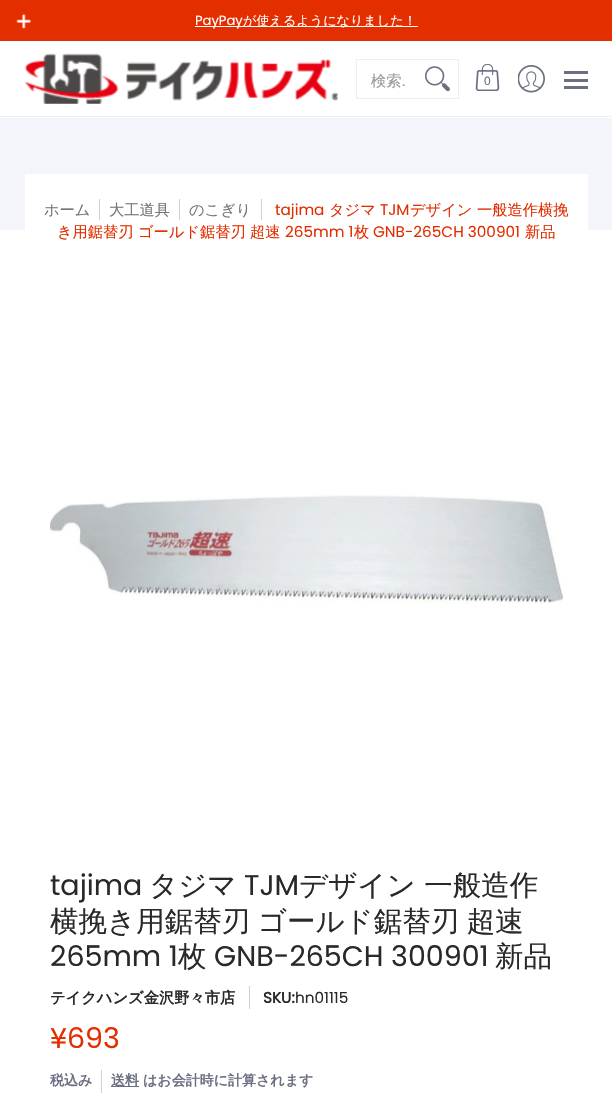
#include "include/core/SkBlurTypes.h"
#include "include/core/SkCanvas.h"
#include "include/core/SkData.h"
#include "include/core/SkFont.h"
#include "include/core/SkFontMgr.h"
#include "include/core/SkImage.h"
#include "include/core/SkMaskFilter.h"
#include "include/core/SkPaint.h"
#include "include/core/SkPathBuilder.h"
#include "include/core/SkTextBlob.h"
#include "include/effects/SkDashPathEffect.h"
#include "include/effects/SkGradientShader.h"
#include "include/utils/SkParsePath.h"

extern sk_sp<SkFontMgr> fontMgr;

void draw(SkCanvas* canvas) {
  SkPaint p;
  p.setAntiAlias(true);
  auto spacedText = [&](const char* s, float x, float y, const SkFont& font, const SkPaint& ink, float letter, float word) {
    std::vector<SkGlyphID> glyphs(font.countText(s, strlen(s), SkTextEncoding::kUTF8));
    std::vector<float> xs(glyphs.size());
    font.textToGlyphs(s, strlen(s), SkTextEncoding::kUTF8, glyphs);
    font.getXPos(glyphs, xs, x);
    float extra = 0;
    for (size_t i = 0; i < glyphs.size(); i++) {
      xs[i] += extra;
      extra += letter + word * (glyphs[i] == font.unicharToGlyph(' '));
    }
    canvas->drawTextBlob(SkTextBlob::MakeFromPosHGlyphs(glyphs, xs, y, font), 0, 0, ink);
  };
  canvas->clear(SK_ColorWHITE);
  p.setColor(SkColorSetRGB(227, 46, 0));
  canvas->drawRect(SkRect::MakeLTRB(0, 0, 612, 41), p);
  canvas->drawImageRect(SkImages::DeferredFromEncodedData(SkData::MakeFromFileName("images/1.png")), SkRect::MakeLTRB(16, 13, 31, 29), SkSamplingOptions());
  p.setColor(SK_ColorWHITE);
  canvas->drawRect(SkRect::MakeLTRB(195, 26, 418, 27), p);
  p.setColor(SkColorSetRGB(237, 238, 244));
  canvas->drawRect(SkRect::MakeLTRB(0, 116, 612, 117), p);
  canvas->drawImageRect(SkImages::DeferredFromEncodedData(SkData::MakeFromFileName("images/2.png")), SkRect::MakeLTRB(24, 53, 338, 104), SkSamplingOptions());
  p.setStyle(SkPaint::kStroke_Style);
  p.setStrokeWidth(1);
  canvas->drawRect(SkRect::MakeLTRB(356.5f, 59.5f, 458.5f, 98.5f), p);
  canvas->drawImageRect(SkImages::DeferredFromEncodedData(SkData::MakeFromFileName("images/3.png")), SkRect::MakeLTRB(425, 66, 450, 92), SkSamplingOptions());
  canvas->drawImageRect(SkImages::DeferredFromEncodedData(SkData::MakeFromFileName("images/4.png")), SkRect::MakeLTRB(475, 64, 500, 91), SkSamplingOptions());
  canvas->drawImageRect(SkImages::DeferredFromEncodedData(SkData::MakeFromFileName("images/5.png")), SkRect::MakeLTRB(518, 65, 545, 93), SkSamplingOptions());
  p.setStyle(SkPaint::kFill_Style);
  p.setColor(SkColorSetRGB(107, 111, 129));
  canvas->drawRect(SkRect::MakeLTRB(564, 71, 588, 74), p);
  canvas->drawRect(SkRect::MakeLTRB(564, 86, 588, 89), p);
  canvas->drawRect(SkRect::MakeLTRB(564, 79, 588, 82), p);
  p.setColor(SkColorSetRGB(244, 245, 250));
  canvas->drawRect(SkRect::MakeLTRB(0, 118, 612, 230), p);
  p.setColor(SK_ColorWHITE);
  canvas->drawRect(SkRect::MakeLTRB(25, 174, 588, 230), p);
  p.setColor(SkColorSetRGB(205, 208, 225));
  canvas->drawRect(SkRect::MakeLTRB(99, 199, 100, 220), p);
  canvas->drawRect(SkRect::MakeLTRB(179, 199, 180, 220), p);
  canvas->drawRect(SkRect::MakeLTRB(261, 199, 262, 220), p);
  canvas->drawImageRect(SkImages::DeferredFromEncodedData(SkData::MakeFromFileName("images/6.png")), SkRect::MakeLTRB(50, 495, 563, 604), SkSamplingOptions());
  canvas->drawRect(SkRect::MakeLTRB(249, 986, 250, 1009), p);
  canvas->drawRect(SkRect::MakeLTRB(101, 1070, 102, 1093), p);
  p.setColor(SkColorSetRGB(107, 111, 129));
  canvas->drawRect(SkRect::MakeLTRB(111, 1086, 139, 1087), p);
  SkFont font1(fontMgr->matchFamilyStyle("Poppins", SkFontStyle::Normal()), 13.1f);
  font1.setSubpixel(true);
  p.setColor(SK_ColorWHITE);
  canvas->drawString("PayPay", 195, 25, font1, p);
  SkFont font2(fontMgr->matchFamilyStyle("WenQuanYi Zen Hei", SkFontStyle(500, SkFontStyle::kNormal_Width, SkFontStyle::kUpright_Slant)), 13.1f);
  font2.setSubpixel(true);
  canvas->drawString("が使えるようになりました！", 243, 25, font2, p);
  SkFont font3(fontMgr->matchFamilyStyle("WenQuanYi Zen Hei", SkFontStyle(500, SkFontStyle::kNormal_Width, SkFontStyle::kUpright_Slant)), 15.25f);
  font3.setSubpixel(true);
  p.setColor(SkColorSetRGB(152, 152, 152));
  canvas->drawString("検索", 371, 86, font3, p);
  SkFont font4(fontMgr->matchFamilyStyle("Poppins", SkFontStyle::Normal()), 15.25f);
  font4.setSubpixel(true);
  canvas->drawString(".", 402, 86, font4, p);
  SkFont font5(fontMgr->matchFamilyStyle("Liberation Sans", SkFontStyle::Normal()), 12);
  font5.setSubpixel(true);
  p.setColor(SkColorSetRGB(107, 111, 129));
  canvas->drawString("0", 484, 85, font5, p);
  p.setColor(SkColorSetRGB(118, 118, 118));
  canvas->drawString("ホーム", 44, 215, font3, p);
  canvas->drawString("大工道具", 109, 215, font3, p);
  canvas->drawString("のこぎり", 189, 215, font3, p);
  p.setColor(SkColorSetRGB(227, 46, 0));
  canvas->drawString("tajima", 275, 215, font4, p);
  canvas->drawString("タジマ", 329, 215, font3, p);
  canvas->drawString("TJM", 380, 215, font4, p);
  canvas->drawString("デザイン 一般造作横挽", 410, 215, font3, p);
  canvas->drawString("き用鋸替刃", 57, 237, font3, p);
  canvas->drawString("ゴールド鋸替刃", 138, 237, font3, p);
  canvas->drawString("超速", 250, 237, font3, p);
  canvas->drawString("265mm 1", 285, 237, font4, p);
  canvas->drawString("枚", 354, 237, font3, p);
  canvas->drawString("GNB-265CH 300901", 373, 237, font4, p);
  canvas->drawString("新品", 525, 237, font3, p);
  SkFont font6(fontMgr->matchFamilyStyle("Poppins", SkFontStyle::Normal()), 28.5f);
  font6.setSubpixel(true);
  p.setColor(SkColorSetRGB(41, 41, 41));
  canvas->drawString("tajima", 50, 895, font6, p);
  SkFont font7(fontMgr->matchFamilyStyle("WenQuanYi Zen Hei", SkFontStyle(500, SkFontStyle::kNormal_Width, SkFontStyle::kUpright_Slant)), 28.5f);
  font7.setSubpixel(true);
  canvas->drawString("タジマ", 149, 895, font7, p);
  canvas->drawString("TJM", 244, 895, font6, p);
  canvas->drawString("デザイン 一般造作", 299, 895, font7, p);
  spacedText("横挽き用鋸替刃 ゴールド鋸替刃 超速", 50, 931, font7, p, 0, -1);
  canvas->drawString("265mm 1", 50, 966, font6, p);
  canvas->drawString("枚", 178, 966, font7, p);
  canvas->drawString("GNB-265CH 300901", 214, 966, font6, p);
  canvas->drawString("新品", 495, 966, font7, p);
  SkFont font8(fontMgr->matchFamilyStyle("WenQuanYi Zen Hei", SkFontStyle::Bold()), 15.25f);
  font8.setSubpixel(true);
  canvas->drawString("テイクハンズ金沢野々市店", 50, 1003, font8, p);
  SkFont font9(fontMgr->matchFamilyStyle("Poppins", SkFontStyle::Bold()), 15.25f);
  font9.setSubpixel(true);
  canvas->drawString("SKU:", 263, 1003, font9, p);
  canvas->drawString("hn01115", 295, 1003, font4, p);
  p.setColor(SkColorSetRGB(227, 46, 0));
  canvas->drawString("¥693", 50, 1048, font6, p);
  SkFont font10(fontMgr->matchFamilyStyle("WenQuanYi Zen Hei", SkFontStyle::Bold()), 14);
  font10.setSubpixel(true);
  p.setColor(SkColorSetRGB(107, 111, 129));
  canvas->drawString("税込み", 50, 1085, font10, p);
  canvas->drawString("送料", 111, 1085, font10, p);
  canvas->drawString("はお会計時に計算されます", 143, 1085, font10, p);
}
